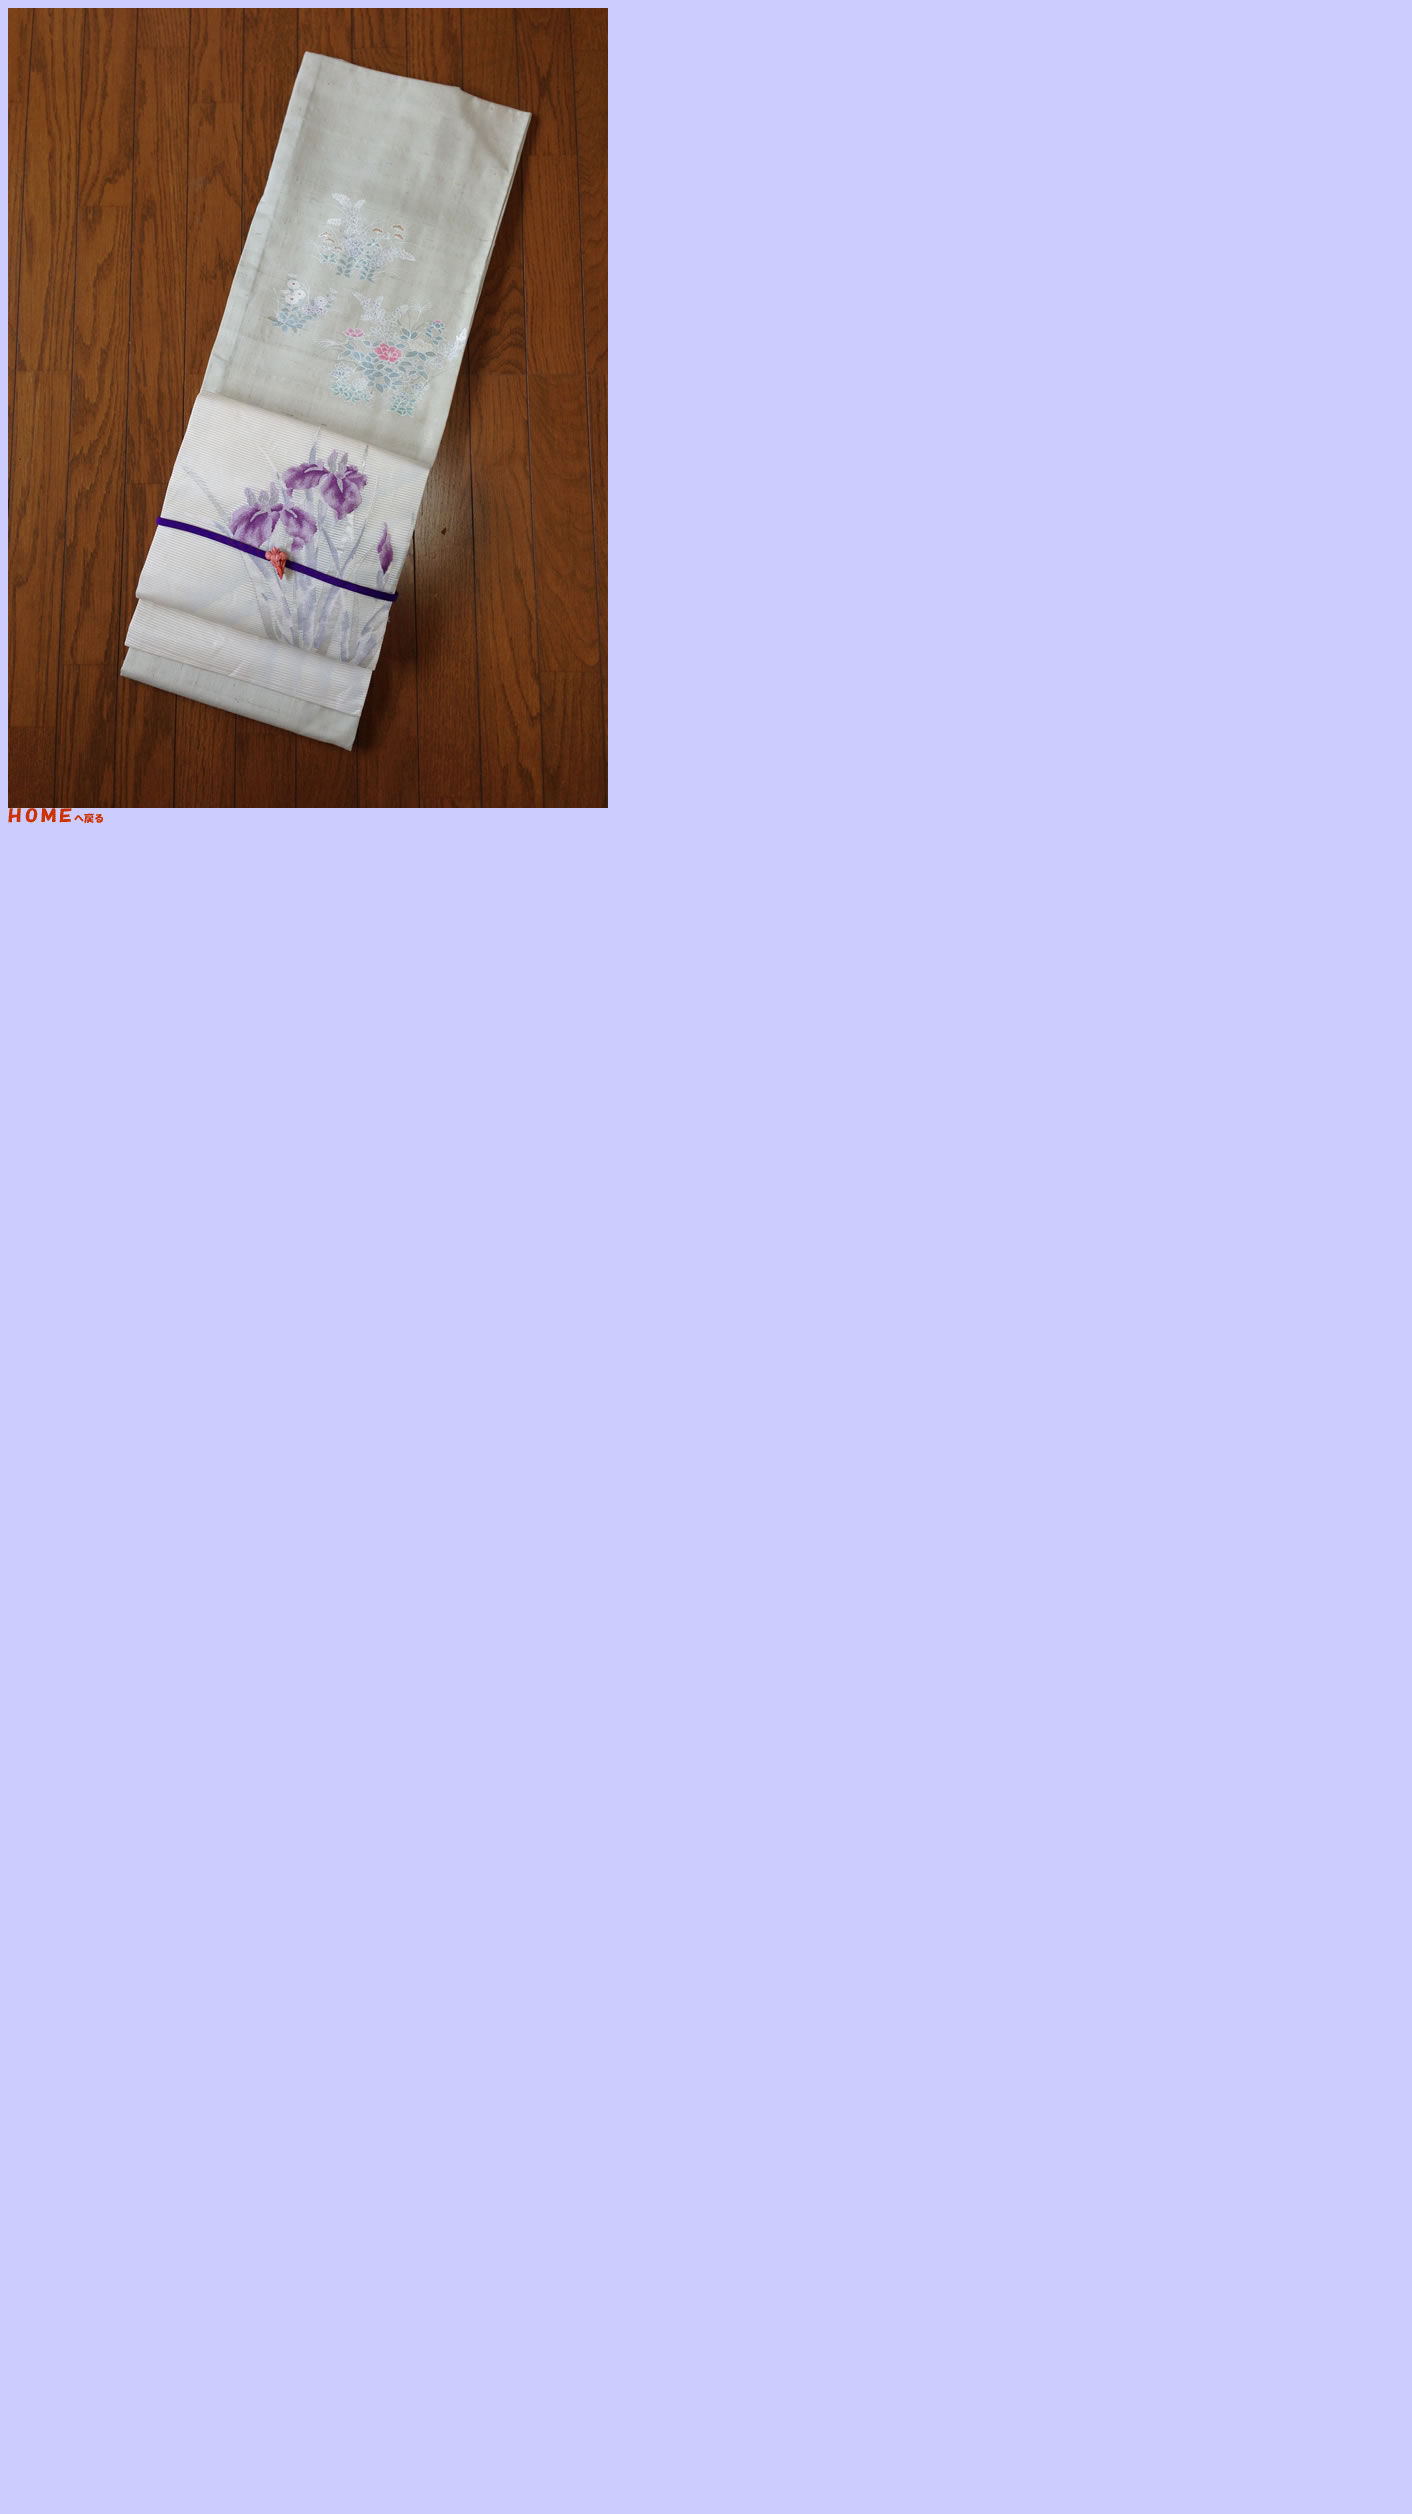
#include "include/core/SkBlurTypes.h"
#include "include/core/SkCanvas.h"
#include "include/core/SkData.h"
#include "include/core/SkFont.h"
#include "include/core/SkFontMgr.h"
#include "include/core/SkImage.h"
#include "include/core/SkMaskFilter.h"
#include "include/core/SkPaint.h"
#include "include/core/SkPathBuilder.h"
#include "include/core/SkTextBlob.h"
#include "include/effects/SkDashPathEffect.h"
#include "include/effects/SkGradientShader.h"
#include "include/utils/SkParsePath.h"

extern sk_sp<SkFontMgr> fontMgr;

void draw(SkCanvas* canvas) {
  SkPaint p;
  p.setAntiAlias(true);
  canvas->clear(SkColorSetRGB(204, 204, 255));
  canvas->drawImageRect(SkImages::DeferredFromEncodedData(SkData::MakeFromFileName("images/1.png")), SkRect::MakeLTRB(8, 8, 608, 808), SkSamplingOptions());
  canvas->drawImageRect(SkImages::DeferredFromEncodedData(SkData::MakeFromFileName("images/2.png")), SkRect::MakeLTRB(8, 808, 104, 823), SkSamplingOptions());
}
